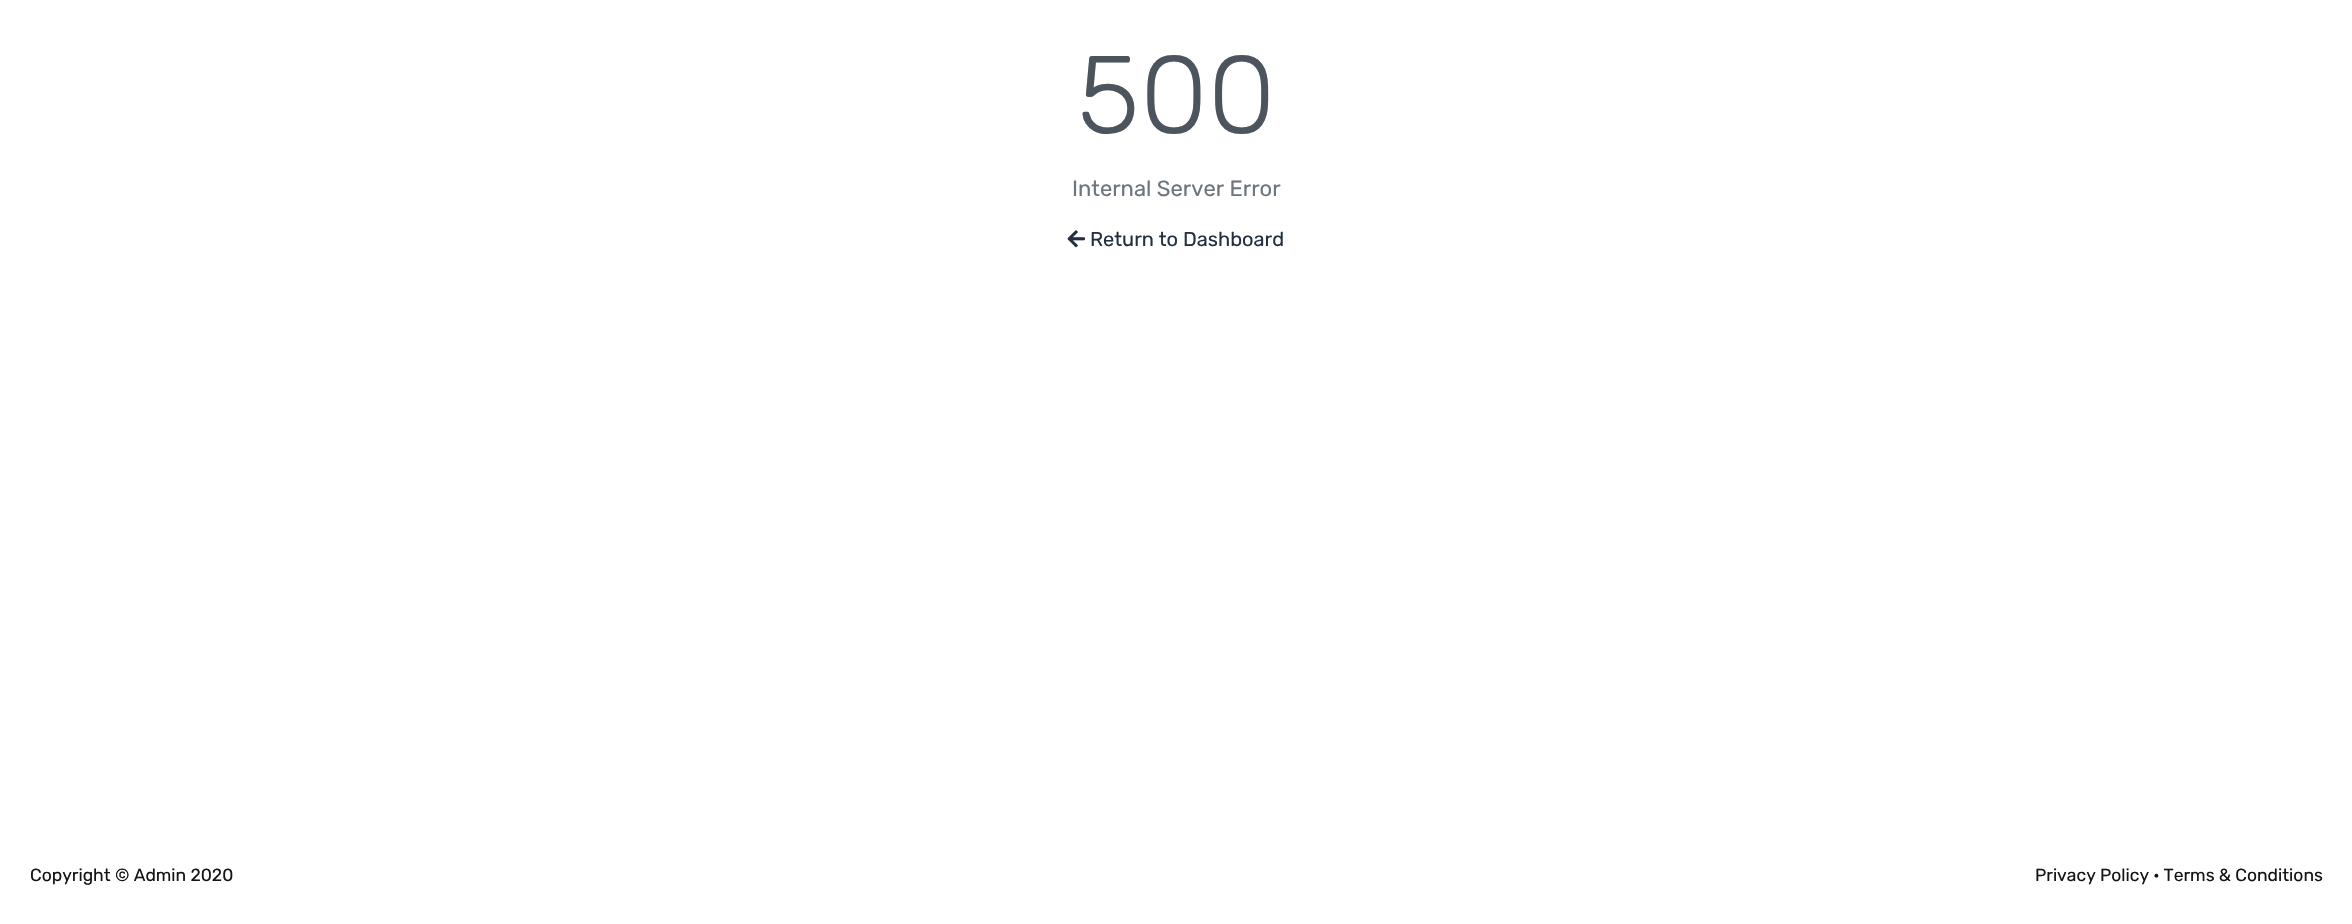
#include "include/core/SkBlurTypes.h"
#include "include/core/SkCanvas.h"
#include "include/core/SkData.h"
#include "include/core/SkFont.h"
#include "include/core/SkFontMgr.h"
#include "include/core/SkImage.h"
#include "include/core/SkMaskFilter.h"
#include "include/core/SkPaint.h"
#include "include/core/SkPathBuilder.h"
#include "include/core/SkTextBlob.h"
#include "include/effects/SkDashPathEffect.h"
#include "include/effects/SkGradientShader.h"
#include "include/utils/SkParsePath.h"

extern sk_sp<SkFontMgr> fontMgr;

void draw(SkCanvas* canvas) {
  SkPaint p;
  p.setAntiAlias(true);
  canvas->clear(SK_ColorWHITE);
  canvas->drawImageRect(SkImages::DeferredFromEncodedData(SkData::MakeFromFileName("images/1.png")), SkRect::MakeLTRB(1067, 230, 1085, 248), SkSamplingOptions());
  SkFont font1(fontMgr->matchFamilyStyle("Rubik", SkFontStyle(300, SkFontStyle::kNormal_Width, SkFontStyle::kUpright_Slant)), 110);
  font1.setSubpixel(true);
  p.setColor(SkColorSetRGB(76, 84, 93));
  canvas->drawString("500", 1077, 133, font1, p);
  SkFont font2(fontMgr->matchFamilyStyle("Rubik", SkFontStyle::Normal()), 22);
  font2.setSubpixel(true);
  p.setColor(SkColorSetRGB(109, 118, 126));
  canvas->drawString("Internal Server Error", 1072, 196, font2, p);
  SkFont font3(fontMgr->matchFamilyStyle("Rubik", SkFontStyle::Normal()), 20);
  font3.setSubpixel(true);
  p.setColor(SkColorSetRGB(34, 48, 63));
  canvas->drawString("Return to Dashboard", 1090, 246, font3, p);
  SkFont font4(fontMgr->matchFamilyStyle("Rubik", SkFontStyle::Normal()), 17.5f);
  font4.setSubpixel(true);
  p.setColor(SkColorSetRGB(18, 20, 22));
  canvas->drawString("Copyright © Admin 2020", 30, 881, font4, p);
  canvas->drawString("Privacy Policy · Terms & Conditions", 2035, 881, font4, p);
}
